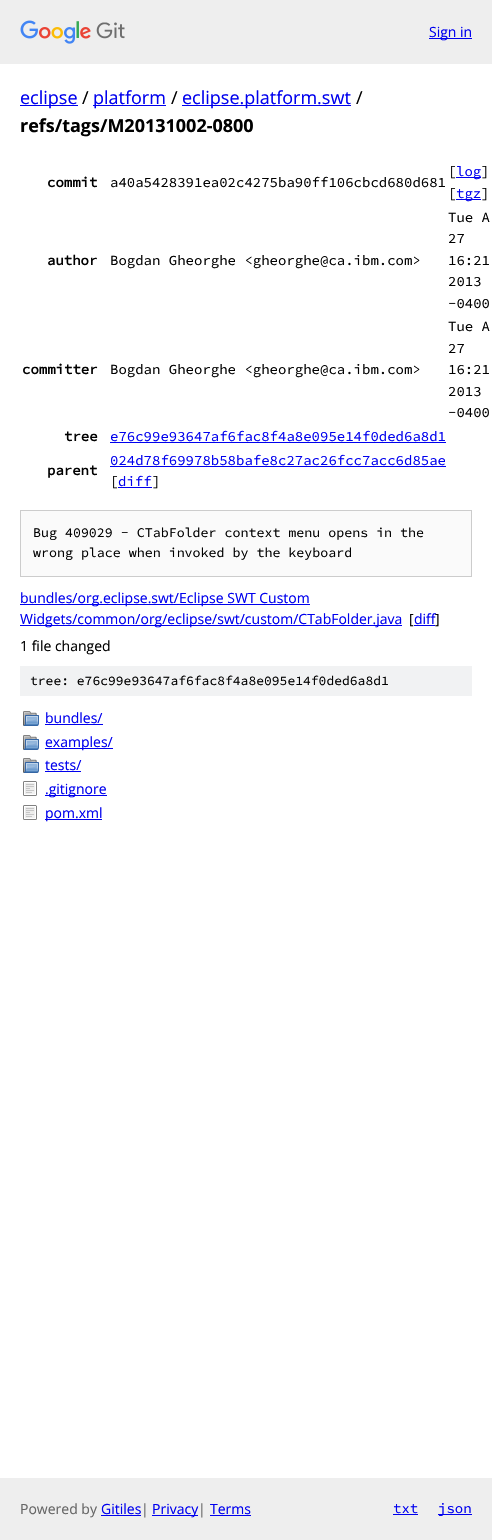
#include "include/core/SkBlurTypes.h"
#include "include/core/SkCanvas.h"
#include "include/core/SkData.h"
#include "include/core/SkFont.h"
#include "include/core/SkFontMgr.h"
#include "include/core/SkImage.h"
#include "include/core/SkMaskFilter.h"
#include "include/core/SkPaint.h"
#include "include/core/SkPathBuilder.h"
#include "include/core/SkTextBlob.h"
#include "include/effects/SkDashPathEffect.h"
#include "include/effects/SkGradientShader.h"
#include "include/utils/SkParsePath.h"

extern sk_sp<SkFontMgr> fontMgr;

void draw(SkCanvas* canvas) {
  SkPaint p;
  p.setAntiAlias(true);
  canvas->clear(SK_ColorWHITE);
  p.setColor(SkColorSetRGB(238, 238, 238));
  canvas->drawRect(SkRect::MakeLTRB(0, 0, 492, 64), p);
  canvas->drawImageRect(SkImages::DeferredFromEncodedData(SkData::MakeFromFileName("images/1.png")), SkRect::MakeLTRB(20, 20, 125, 44), SkSamplingOptions());
  p.setColor(SkColorSetRGB(0, 0, 238));
  canvas->drawRect(SkRect::MakeLTRB(429, 38, 472, 39), p);
  canvas->drawRect(SkRect::MakeLTRB(20, 105, 78, 106), p);
  canvas->drawRect(SkRect::MakeLTRB(93, 105, 166, 106), p);
  canvas->drawRect(SkRect::MakeLTRB(182, 105, 351, 106), p);
  canvas->drawRect(SkRect::MakeLTRB(456, 177, 481, 178), p);
  canvas->drawRect(SkRect::MakeLTRB(456, 199, 481, 200), p);
  canvas->drawRect(SkRect::MakeLTRB(110, 442, 446, 443), p);
  canvas->drawRect(SkRect::MakeLTRB(110, 466, 446, 467), p);
  canvas->drawRect(SkRect::MakeLTRB(118, 487, 152, 488), p);
  p.setColor(SkColorSetRGB(250, 250, 250));
  canvas->drawRect(SkRect::MakeLTRB(20.5f, 510.5f, 471.5f, 576.5f), p);
  p.setStyle(SkPaint::kStroke_Style);
  p.setStrokeWidth(1);
  p.setColor(SkColorSetRGB(204, 204, 204));
  canvas->drawRect(SkRect::MakeLTRB(20.5f, 510.5f, 471.5f, 576.5f), p);
  p.setStyle(SkPaint::kFill_Style);
  p.setColor(SkColorSetRGB(0, 0, 238));
  canvas->drawRect(SkRect::MakeLTRB(20, 604, 310, 605), p);
  canvas->drawRect(SkRect::MakeLTRB(20, 625, 402, 626), p);
  canvas->drawRect(SkRect::MakeLTRB(414, 625, 435, 626), p);
  p.setColor(SkColorSetRGB(241, 242, 243));
  canvas->drawRect(SkRect::MakeLTRB(20, 666, 472, 696), p);
  canvas->drawImageRect(SkImages::DeferredFromEncodedData(SkData::MakeFromFileName("images/2.png")), SkRect::MakeLTRB(23, 711, 39, 726), SkSamplingOptions());
  p.setColor(SkColorSetRGB(0, 0, 238));
  canvas->drawRect(SkRect::MakeLTRB(45, 724, 103, 725), p);
  canvas->drawImageRect(SkImages::DeferredFromEncodedData(SkData::MakeFromFileName("images/2.png")), SkRect::MakeLTRB(23, 735, 39, 750), SkSamplingOptions());
  canvas->drawRect(SkRect::MakeLTRB(45, 748, 113, 749), p);
  canvas->drawImageRect(SkImages::DeferredFromEncodedData(SkData::MakeFromFileName("images/2.png")), SkRect::MakeLTRB(23, 758, 39, 773), SkSamplingOptions());
  canvas->drawRect(SkRect::MakeLTRB(45, 771, 81, 772), p);
  canvas->drawImageRect(SkImages::DeferredFromEncodedData(SkData::MakeFromFileName("images/3.png")), SkRect::MakeLTRB(23, 781, 37, 796), SkSamplingOptions());
  canvas->drawRect(SkRect::MakeLTRB(45, 795, 107, 796), p);
  canvas->drawImageRect(SkImages::DeferredFromEncodedData(SkData::MakeFromFileName("images/3.png")), SkRect::MakeLTRB(23, 805, 37, 820), SkSamplingOptions());
  canvas->drawRect(SkRect::MakeLTRB(45, 819, 102, 820), p);
  p.setColor(SkColorSetRGB(238, 238, 238));
  canvas->drawRect(SkRect::MakeLTRB(0, 1478, 492, 1540), p);
  p.setColor(SkColorSetRGB(0, 0, 238));
  canvas->drawRect(SkRect::MakeLTRB(101, 1515, 141, 1516), p);
  canvas->drawRect(SkRect::MakeLTRB(152, 1515, 198, 1516), p);
  canvas->drawRect(SkRect::MakeLTRB(210, 1515, 251, 1516), p);
  canvas->drawRect(SkRect::MakeLTRB(393, 1514, 418, 1515), p);
  canvas->drawRect(SkRect::MakeLTRB(438, 1514, 472, 1515), p);
  SkFont font1(fontMgr->matchFamilyStyle("Open Sans", SkFontStyle::Normal()), 14);
  font1.setSubpixel(true);
  canvas->drawString("Sign in", 429, 37, font1, p);
  SkFont font2(fontMgr->matchFamilyStyle("Open Sans", SkFontStyle::Normal()), 18);
  font2.setSubpixel(true);
  canvas->drawString("eclipse", 20, 104, font2, p);
  p.setColor(SK_ColorBLACK);
  canvas->drawString("/", 82, 104, font2, p);
  p.setColor(SkColorSetRGB(0, 0, 238));
  canvas->drawString("platform", 93, 104, font2, p);
  p.setColor(SK_ColorBLACK);
  canvas->drawString("/", 171, 104, font2, p);
  p.setColor(SkColorSetRGB(0, 0, 238));
  canvas->drawString("eclipse.platform.swt", 182, 104, font2, p);
  p.setColor(SK_ColorBLACK);
  canvas->drawString("/", 356, 104, font2, p);
  SkFont font3(fontMgr->matchFamilyStyle("Open Sans", SkFontStyle::Bold()), 18);
  font3.setSubpixel(true);
  canvas->drawString("refs/tags/M20131002-0800", 20, 132, font3, p);
  SkFont font4(fontMgr->matchFamilyStyle("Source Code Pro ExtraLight", SkFontStyle::Bold()), 14);
  font4.setSubpixel(true);
  canvas->drawString("commit", 47, 187, font4, p);
  SkFont font5(fontMgr->matchFamilyStyle("Source Code Pro ExtraLight", SkFontStyle(200, SkFontStyle::kNormal_Width, SkFontStyle::kUpright_Slant)), 14);
  font5.setSubpixel(true);
  canvas->drawString("a40a5428391ea02c4275ba90ff106cbcd680d681", 110, 187, font5, p);
  canvas->drawString("[", 448, 176, font5, p);
  p.setColor(SkColorSetRGB(0, 0, 238));
  canvas->drawString("log", 456, 176, font5, p);
  p.setColor(SK_ColorBLACK);
  canvas->drawString("]", 481, 176, font5, p);
  canvas->drawString("[", 448, 198, font5, p);
  p.setColor(SkColorSetRGB(0, 0, 238));
  canvas->drawString("tgz", 456, 198, font5, p);
  p.setColor(SK_ColorBLACK);
  canvas->drawString("]", 481, 198, font5, p);
  canvas->drawString("author", 47, 265, font4, p);
  canvas->drawString("Bogdan Gheorghe <gheorghe@ca.ibm.com>", 110, 265, font5, p);
  canvas->drawString("Tue A", 448, 222, font5, p);
  canvas->drawString("27", 448, 243, font5, p);
  canvas->drawString("16:21", 448, 265, font5, p);
  canvas->drawString("2013", 448, 286, font5, p);
  canvas->drawString("-0400", 448, 308, font5, p);
  canvas->drawString("committer", 22, 374, font4, p);
  canvas->drawString("Bogdan Gheorghe <gheorghe@ca.ibm.com>", 110, 374, font5, p);
  canvas->drawString("Tue A", 448, 331, font5, p);
  canvas->drawString("27", 448, 353, font5, p);
  canvas->drawString("16:21", 448, 374, font5, p);
  canvas->drawString("2013", 448, 396, font5, p);
  canvas->drawString("-0400", 448, 417, font5, p);
  canvas->drawString("tree", 64, 441, font4, p);
  p.setColor(SkColorSetRGB(0, 0, 238));
  canvas->drawString("e76c99e93647af6fac8f4a8e095e14f0ded6a8d1", 110, 441, font5, p);
  p.setColor(SK_ColorBLACK);
  canvas->drawString("parent", 47, 475, font4, p);
  p.setColor(SkColorSetRGB(0, 0, 238));
  canvas->drawString("024d78f69978b58bafe8c27ac26fcc7acc6d85ae", 110, 465, font5, p);
  p.setColor(SK_ColorBLACK);
  canvas->drawString("[", 110, 486, font5, p);
  p.setColor(SkColorSetRGB(0, 0, 238));
  canvas->drawString("diff", 118, 486, font5, p);
  p.setColor(SK_ColorBLACK);
  canvas->drawString("]", 152, 486, font5, p);
  SkFont font6(fontMgr->matchFamilyStyle("Source Code Pro ExtraLight", SkFontStyle(200, SkFontStyle::kNormal_Width, SkFontStyle::kUpright_Slant)), 13.3f);
  font6.setSubpixel(true);
  canvas->drawString("Bug 409029 - CTabFolder context menu opens in the", 33, 537, font6, p);
  canvas->drawString("wrong place when invoked by the keyboard", 33, 557, font6, p);
  p.setColor(SkColorSetRGB(0, 0, 238));
  canvas->drawString("bundles/org.eclipse.swt/Eclipse SWT Custom", 20, 603, font1, p);
  canvas->drawString("Widgets/common/org/eclipse/swt/custom/CTabFolder.java", 20, 624, font1, p);
  p.setColor(SK_ColorBLACK);
  canvas->drawString("[", 409, 624, font1, p);
  p.setColor(SkColorSetRGB(0, 0, 238));
  canvas->drawString("diff", 414, 624, font1, p);
  p.setColor(SK_ColorBLACK);
  canvas->drawString("]", 435, 624, font1, p);
  canvas->drawString("1 file changed", 20, 651, font1, p);
  SkFont font7(fontMgr->matchFamilyStyle("Source Code Pro ExtraLight", SkFontStyle(200, SkFontStyle::kNormal_Width, SkFontStyle::kUpright_Slant)), 13);
  font7.setSubpixel(true);
  canvas->drawString("tree: e76c99e93647af6fac8f4a8e095e14f0ded6a8d1", 30, 685, font7, p);
  p.setColor(SkColorSetRGB(0, 0, 238));
  canvas->drawString("bundles/", 45, 723, font1, p);
  canvas->drawString("examples/", 45, 747, font1, p);
  canvas->drawString("tests/", 45, 770, font1, p);
  canvas->drawString(".gitignore", 45, 794, font1, p);
  canvas->drawString("pom.xml", 45, 818, font1, p);
  p.setColor(SkColorSetRGB(102, 102, 102));
  canvas->drawString("Powered by", 20, 1514, font1, p);
  p.setColor(SkColorSetRGB(0, 0, 238));
  canvas->drawString("Gitiles", 101, 1514, font1, p);
  p.setColor(SkColorSetRGB(102, 102, 102));
  canvas->drawString("|", 141, 1514, font1, p);
  p.setColor(SkColorSetRGB(0, 0, 238));
  canvas->drawString("Privacy", 152, 1514, font1, p);
  p.setColor(SkColorSetRGB(102, 102, 102));
  canvas->drawString("|", 198, 1514, font1, p);
  p.setColor(SkColorSetRGB(0, 0, 238));
  canvas->drawString("Terms", 210, 1514, font1, p);
  canvas->drawString("txt", 393, 1513, font5, p);
  canvas->drawString("json", 438, 1513, font5, p);
}
